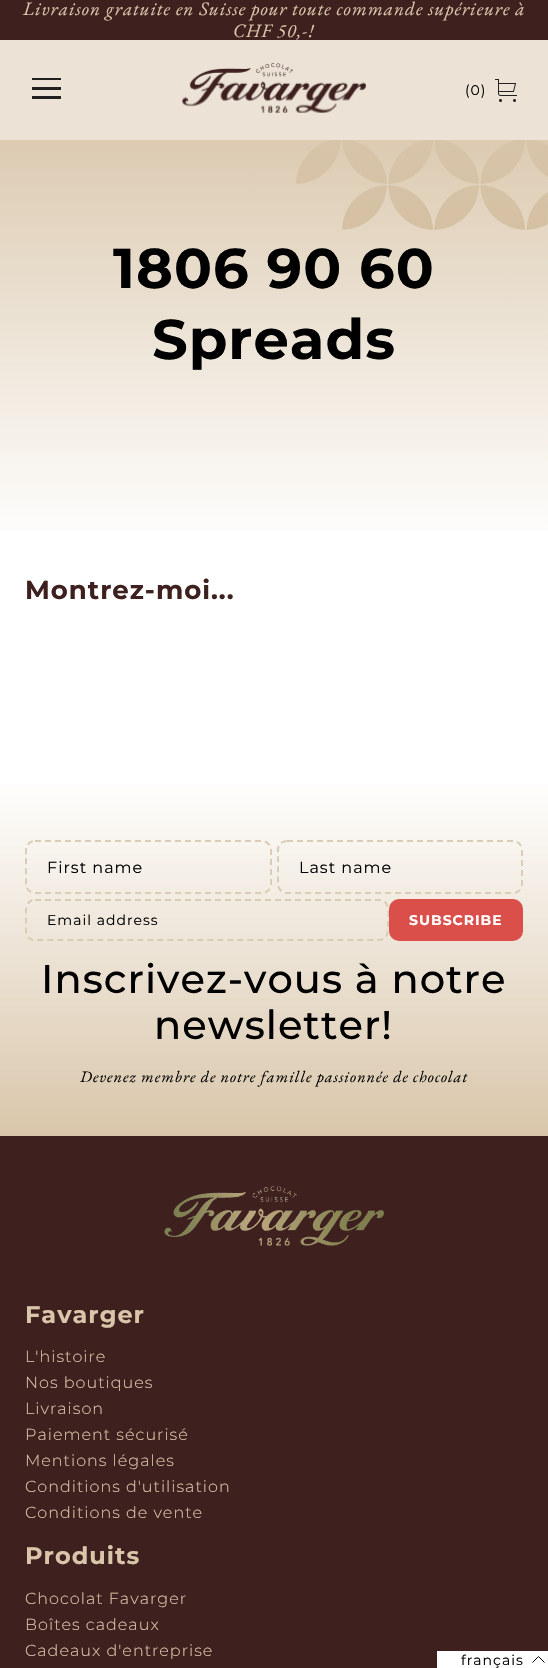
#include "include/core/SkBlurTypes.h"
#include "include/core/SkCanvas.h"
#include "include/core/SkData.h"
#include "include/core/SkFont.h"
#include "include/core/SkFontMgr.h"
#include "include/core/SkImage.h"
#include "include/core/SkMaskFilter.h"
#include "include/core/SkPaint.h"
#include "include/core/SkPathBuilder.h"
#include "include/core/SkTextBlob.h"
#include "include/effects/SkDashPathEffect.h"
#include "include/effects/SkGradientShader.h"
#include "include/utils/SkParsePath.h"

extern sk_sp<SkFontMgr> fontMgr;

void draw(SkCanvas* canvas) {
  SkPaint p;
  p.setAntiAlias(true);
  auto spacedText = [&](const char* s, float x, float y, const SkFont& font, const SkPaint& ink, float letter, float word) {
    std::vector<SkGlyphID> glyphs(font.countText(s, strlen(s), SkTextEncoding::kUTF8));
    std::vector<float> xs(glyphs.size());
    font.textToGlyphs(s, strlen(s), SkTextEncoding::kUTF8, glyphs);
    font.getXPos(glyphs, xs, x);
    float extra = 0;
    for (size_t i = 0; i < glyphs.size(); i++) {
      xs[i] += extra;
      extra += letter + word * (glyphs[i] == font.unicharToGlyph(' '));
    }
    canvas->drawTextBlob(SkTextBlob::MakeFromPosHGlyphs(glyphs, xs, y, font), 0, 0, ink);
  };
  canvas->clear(SK_ColorWHITE);
  p.setColor(SkColorSetRGB(62, 32, 30));
  canvas->drawRect(SkRect::MakeLTRB(0, 0, 548, 40), p);
  p.setColor(SkColorSetRGB(236, 226, 213));
  canvas->drawRect(SkRect::MakeLTRB(0, 40, 548, 140), p);
  p.setColor(SkColorSetRGB(33, 33, 33));
  canvas->drawRect(SkRect::MakeLTRB(32, 78, 61, 80), p);
  canvas->drawRect(SkRect::MakeLTRB(32, 87, 61, 90), p);
  canvas->drawRect(SkRect::MakeLTRB(32, 96, 61, 99), p);
  canvas->drawImageRect(SkImages::DeferredFromEncodedData(SkData::MakeFromFileName("images/1.png")), SkRect::MakeLTRB(182, 63, 366, 113), SkSamplingOptions());
  canvas->drawImageRect(SkImages::DeferredFromEncodedData(SkData::MakeFromFileName("images/2.png")), SkRect::MakeLTRB(495, 79, 517, 102), SkSamplingOptions());
  canvas->drawImageRect(SkImages::DeferredFromEncodedData(SkData::MakeFromFileName("images/3.png")), SkRect::MakeLTRB(0, 140, 548, 531), SkSamplingOptions());
  {
    const SkColor colors[] = {SkColorSetRGB(217, 198, 170), SK_ColorWHITE};
    const float stops[] = {0, 1};
    const SkPoint ends[] = {{274, 1136}, {274, 775}};
    p.setShader(SkGradientShader::MakeLinear(ends, colors, stops, 2, SkTileMode::kClamp));
    p.setAlpha(255);
  }
  canvas->drawRect(SkRect::MakeLTRB(0, 786, 548, 1136), p);
  p.setStyle(SkPaint::kStroke_Style);
  p.setStrokeWidth(2);
  p.setShader(nullptr);
  p.setColor(SkColorSetRGB(218, 205, 180));
  p.setPathEffect(SkDashPathEffect::Make({{6, 4}}, 0));
  canvas->drawPath(SkPathBuilder().moveTo(35, 841).lineTo(262, 841).cubicTo(267, 841, 271, 845, 271, 850).lineTo(271, 884).cubicTo(271, 889, 267, 893, 262, 893).lineTo(35, 893).cubicTo(30, 893, 26, 889, 26, 884).lineTo(26, 850).cubicTo(26, 845, 30, 841, 35, 841).close().detach(), p);
  p.setPathEffect(nullptr);
  p.setPathEffect(SkDashPathEffect::Make({{6, 4}}, 0));
  canvas->drawPath(SkPathBuilder().moveTo(287, 841).lineTo(513, 841).cubicTo(518, 841, 522, 845, 522, 850).lineTo(522, 884).cubicTo(522, 889, 518, 893, 513, 893).lineTo(287, 893).cubicTo(282, 893, 278, 889, 278, 884).lineTo(278, 850).cubicTo(278, 845, 282, 841, 287, 841).close().detach(), p);
  p.setPathEffect(nullptr);
  p.setPathEffect(SkDashPathEffect::Make({{6, 4}}, 0));
  canvas->drawPath(SkPathBuilder().moveTo(35, 900).lineTo(381, 900).cubicTo(391, 902, 388, 916.5f, 388, 923.5f).cubicTo(388, 930.5f, 388.5f, 940, 379, 940).lineTo(33, 940).cubicTo(24, 938, 26, 927, 26, 920).cubicTo(26, 913, 24, 900, 35, 900).close().detach(), p);
  p.setPathEffect(nullptr);
  p.setStyle(SkPaint::kFill_Style);
  p.setColor(SkColorSetRGB(218, 79, 73));
  canvas->drawRoundRect(SkRect::MakeLTRB(389, 899, 523, 941), 10, 10, p);
  p.setColor(SkColorSetRGB(62, 32, 30));
  canvas->drawRect(SkRect::MakeLTRB(0, 1136, 548, 1668), p);
  canvas->drawImageRect(SkImages::DeferredFromEncodedData(SkData::MakeFromFileName("images/4.png")), SkRect::MakeLTRB(164, 1186, 384, 1246), SkSamplingOptions());
  p.setColor(SK_ColorWHITE);
  canvas->drawRect(SkRect::MakeLTRB(437, 1651, 548, 1668), p);
  p.setStyle(SkPaint::kStroke_Style);
  p.setStrokeWidth(1);
  p.setColor(SK_ColorBLACK);
  canvas->drawPath(SkPathBuilder().moveTo(544.5f, 1662.5f).lineTo(538.5f, 1656.5f).lineTo(532.5f, 1662.5f).detach(), p);
  SkFont font1(fontMgr->matchFamilyStyle("EB Garamond", SkFontStyle::Italic()), 19);
  font1.setSubpixel(true);
  p.setStyle(SkPaint::kFill_Style);
  p.setColor(SkColorSetRGB(217, 198, 170));
  spacedText("Livraison gratuite en Suisse pour toute commande supérieure à", 23, 15, font1, p, 1, 0);
  spacedText("CHF 50,-!", 233, 37, font1, p, 1, 0);
  SkFont font2(fontMgr->matchFamilyStyle("Montserrat", SkFontStyle::Normal()), 14);
  font2.setSubpixel(true);
  p.setColor(SK_ColorBLACK);
  spacedText("(0)", 465, 95, font2, p, 1, 0);
  SkFont font3(fontMgr->matchFamilyStyle("Montserrat", SkFontStyle::Bold()), 56);
  font3.setSubpixel(true);
  spacedText("1806 90 60", 113, 288, font3, p, 1, 0);
  spacedText("Spreads", 152, 359, font3, p, 1, 0);
  SkFont font4(fontMgr->matchFamilyStyle("Montserrat", SkFontStyle::Bold()), 26);
  font4.setSubpixel(true);
  p.setColor(SkColorSetRGB(62, 32, 30));
  spacedText("Montrez-moi...", 25, 599, font4, p, 1, 0);
  SkFont font5(fontMgr->matchFamilyStyle("Montserrat", SkFontStyle::Normal()), 16);
  font5.setSubpixel(true);
  p.setColor(SK_ColorBLACK);
  spacedText("First name", 47, 873, font5, p, 1, 0);
  spacedText("Last name", 299, 873, font5, p, 1, 0);
  spacedText("Email address", 47, 925, font2, p, 1, 0);
  SkFont font6(fontMgr->matchFamilyStyle("Montserrat", SkFontStyle::Bold()), 14);
  font6.setSubpixel(true);
  p.setColor(SK_ColorWHITE);
  spacedText("SUBSCRIBE", 409, 925, font6, p, 1, 0);
  SkFont font7(fontMgr->matchFamilyStyle("Montserrat", SkFontStyle(500, SkFontStyle::kNormal_Width, SkFontStyle::kUpright_Slant)), 40);
  font7.setSubpixel(true);
  p.setColor(SK_ColorBLACK);
  spacedText("Inscrivez-vous à notre", 41, 993, font7, p, 1, 0);
  spacedText("newsletter!", 154, 1039, font7, p, 1, 0);
  SkFont font8(fontMgr->matchFamilyStyle("EB Garamond", SkFontStyle::Italic()), 16);
  font8.setSubpixel(true);
  spacedText("Devenez membre de notre famille passionnée de chocolat", 80, 1082, font8, p, 1, 0);
  SkFont font9(fontMgr->matchFamilyStyle("Montserrat", SkFontStyle::Bold()), 24);
  font9.setSubpixel(true);
  p.setColor(SkColorSetRGB(217, 198, 170));
  spacedText("Favarger", 25, 1323, font9, p, 1, 0);
  SkFont font10(fontMgr->matchFamilyStyle("Montserrat", SkFontStyle(300, SkFontStyle::kNormal_Width, SkFontStyle::kUpright_Slant)), 16);
  font10.setSubpixel(true);
  spacedText("L'histoire", 25, 1362, font10, p, 1, 0);
  spacedText("Nos boutiques", 25, 1388, font10, p, 1, 0);
  spacedText("Livraison", 25, 1414, font10, p, 1, 0);
  spacedText("Paiement sécurisé", 25, 1440, font10, p, 1, 0);
  spacedText("Mentions légales", 25, 1466, font10, p, 1, 0);
  spacedText("Conditions d'utilisation", 25, 1492, font10, p, 1, 0);
  spacedText("Conditions de vente", 25, 1518, font10, p, 1, 0);
  spacedText("Produits", 25, 1564, font9, p, 1, 0);
  spacedText("Chocolat Favarger", 25, 1604, font10, p, 1, 0);
  spacedText("Boîtes cadeaux", 25, 1630, font10, p, 1, 0);
  spacedText("Cadeaux d'entreprise", 25, 1656, font10, p, 1, 0);
  p.setColor(SK_ColorBLACK);
  spacedText("français", 461, 1665, font2, p, 1, 0);
}
